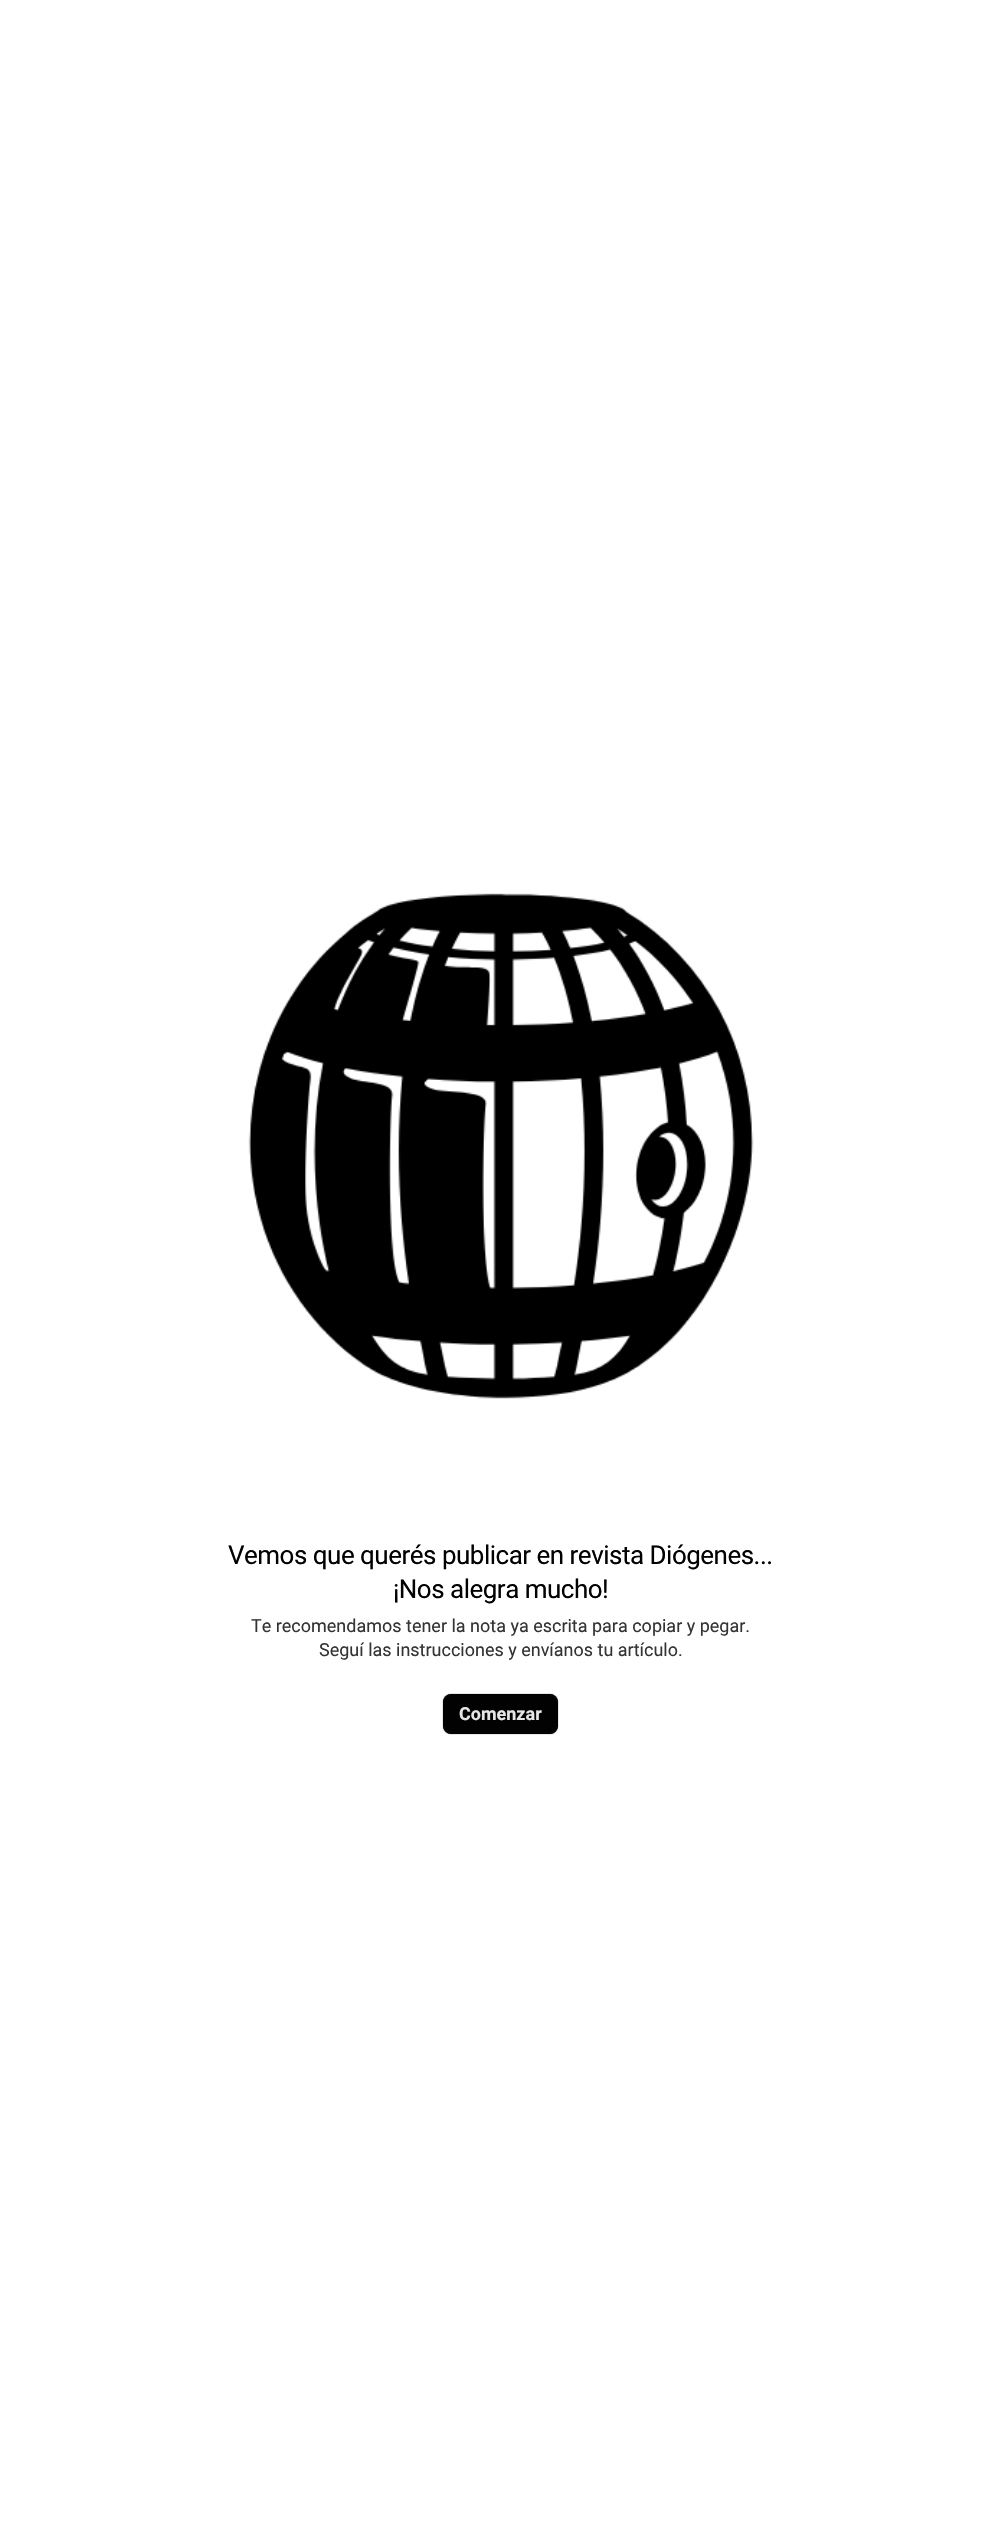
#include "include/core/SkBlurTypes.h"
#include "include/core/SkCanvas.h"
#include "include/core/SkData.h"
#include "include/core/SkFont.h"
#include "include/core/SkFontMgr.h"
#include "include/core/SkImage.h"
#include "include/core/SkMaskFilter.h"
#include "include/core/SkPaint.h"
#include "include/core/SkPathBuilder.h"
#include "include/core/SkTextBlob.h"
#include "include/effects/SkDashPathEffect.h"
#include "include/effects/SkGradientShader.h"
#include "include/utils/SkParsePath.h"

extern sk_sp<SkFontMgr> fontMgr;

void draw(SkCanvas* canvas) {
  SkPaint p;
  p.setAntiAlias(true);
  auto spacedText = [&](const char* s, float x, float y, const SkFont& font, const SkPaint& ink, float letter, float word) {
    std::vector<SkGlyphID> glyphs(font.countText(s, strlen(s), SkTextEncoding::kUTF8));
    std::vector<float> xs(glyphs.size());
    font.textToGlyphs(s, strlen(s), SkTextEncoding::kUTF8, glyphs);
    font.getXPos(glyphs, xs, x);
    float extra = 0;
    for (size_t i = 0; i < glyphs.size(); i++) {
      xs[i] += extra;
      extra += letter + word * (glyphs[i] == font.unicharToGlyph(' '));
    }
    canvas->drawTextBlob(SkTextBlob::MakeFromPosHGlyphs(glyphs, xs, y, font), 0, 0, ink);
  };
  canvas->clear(SK_ColorWHITE);
  canvas->drawImageRect(SkImages::DeferredFromEncodedData(SkData::MakeFromFileName("images/1.png")), SkRect::MakeLTRB(248, 893, 754, 1399), SkSamplingOptions());
  p.setStyle(SkPaint::kStroke_Style);
  p.setStrokeWidth(1);
  p.setColor(SkColorSetRGB(2, 2, 2));
  canvas->drawRoundRect(SkRect::MakeLTRB(443.5f, 1694.5f, 557.5f, 1733.5f), 7.5f, 7.5f, p);
  p.setStyle(SkPaint::kFill_Style);
  p.setMaskFilter(SkMaskFilter::MakeBlur(kNormal_SkBlurStyle, 0.5f));
  canvas->drawRoundRect(SkRect::MakeLTRB(443, 1694, 558, 1734), 8, 8, p);
  p.setMaskFilter(nullptr);
  SkFont font1(fontMgr->matchFamilyStyle("Roboto", SkFontStyle::Normal()), 26);
  font1.setSubpixel(true);
  p.setColor(SkColorSetRGB(1, 1, 1));
  spacedText("Vemos que querés publicar en revista Diógenes...", 228, 1564, font1, p, -0.5f, 0);
  spacedText("¡Nos alegra mucho!", 393, 1598, font1, p, -0.5f, 0);
  SkFont font2(fontMgr->matchFamilyStyle("Roboto", SkFontStyle::Normal()), 18);
  font2.setSubpixel(true);
  p.setColor(SkColorSetRGB(52, 52, 52));
  canvas->drawString("Te recomendamos tener la nota ya escrita para copiar y pegar.", 251, 1632, font2, p);
  canvas->drawString("Seguí las instrucciones y envíanos tu artículo.", 319, 1656, font2, p);
  SkFont font3(fontMgr->matchFamilyStyle("Roboto", SkFontStyle::Bold()), 18);
  font3.setSubpixel(true);
  p.setColor(SkColorSetRGB(230, 230, 230));
  canvas->drawString("Comenzar", 459, 1720, font3, p);
}
